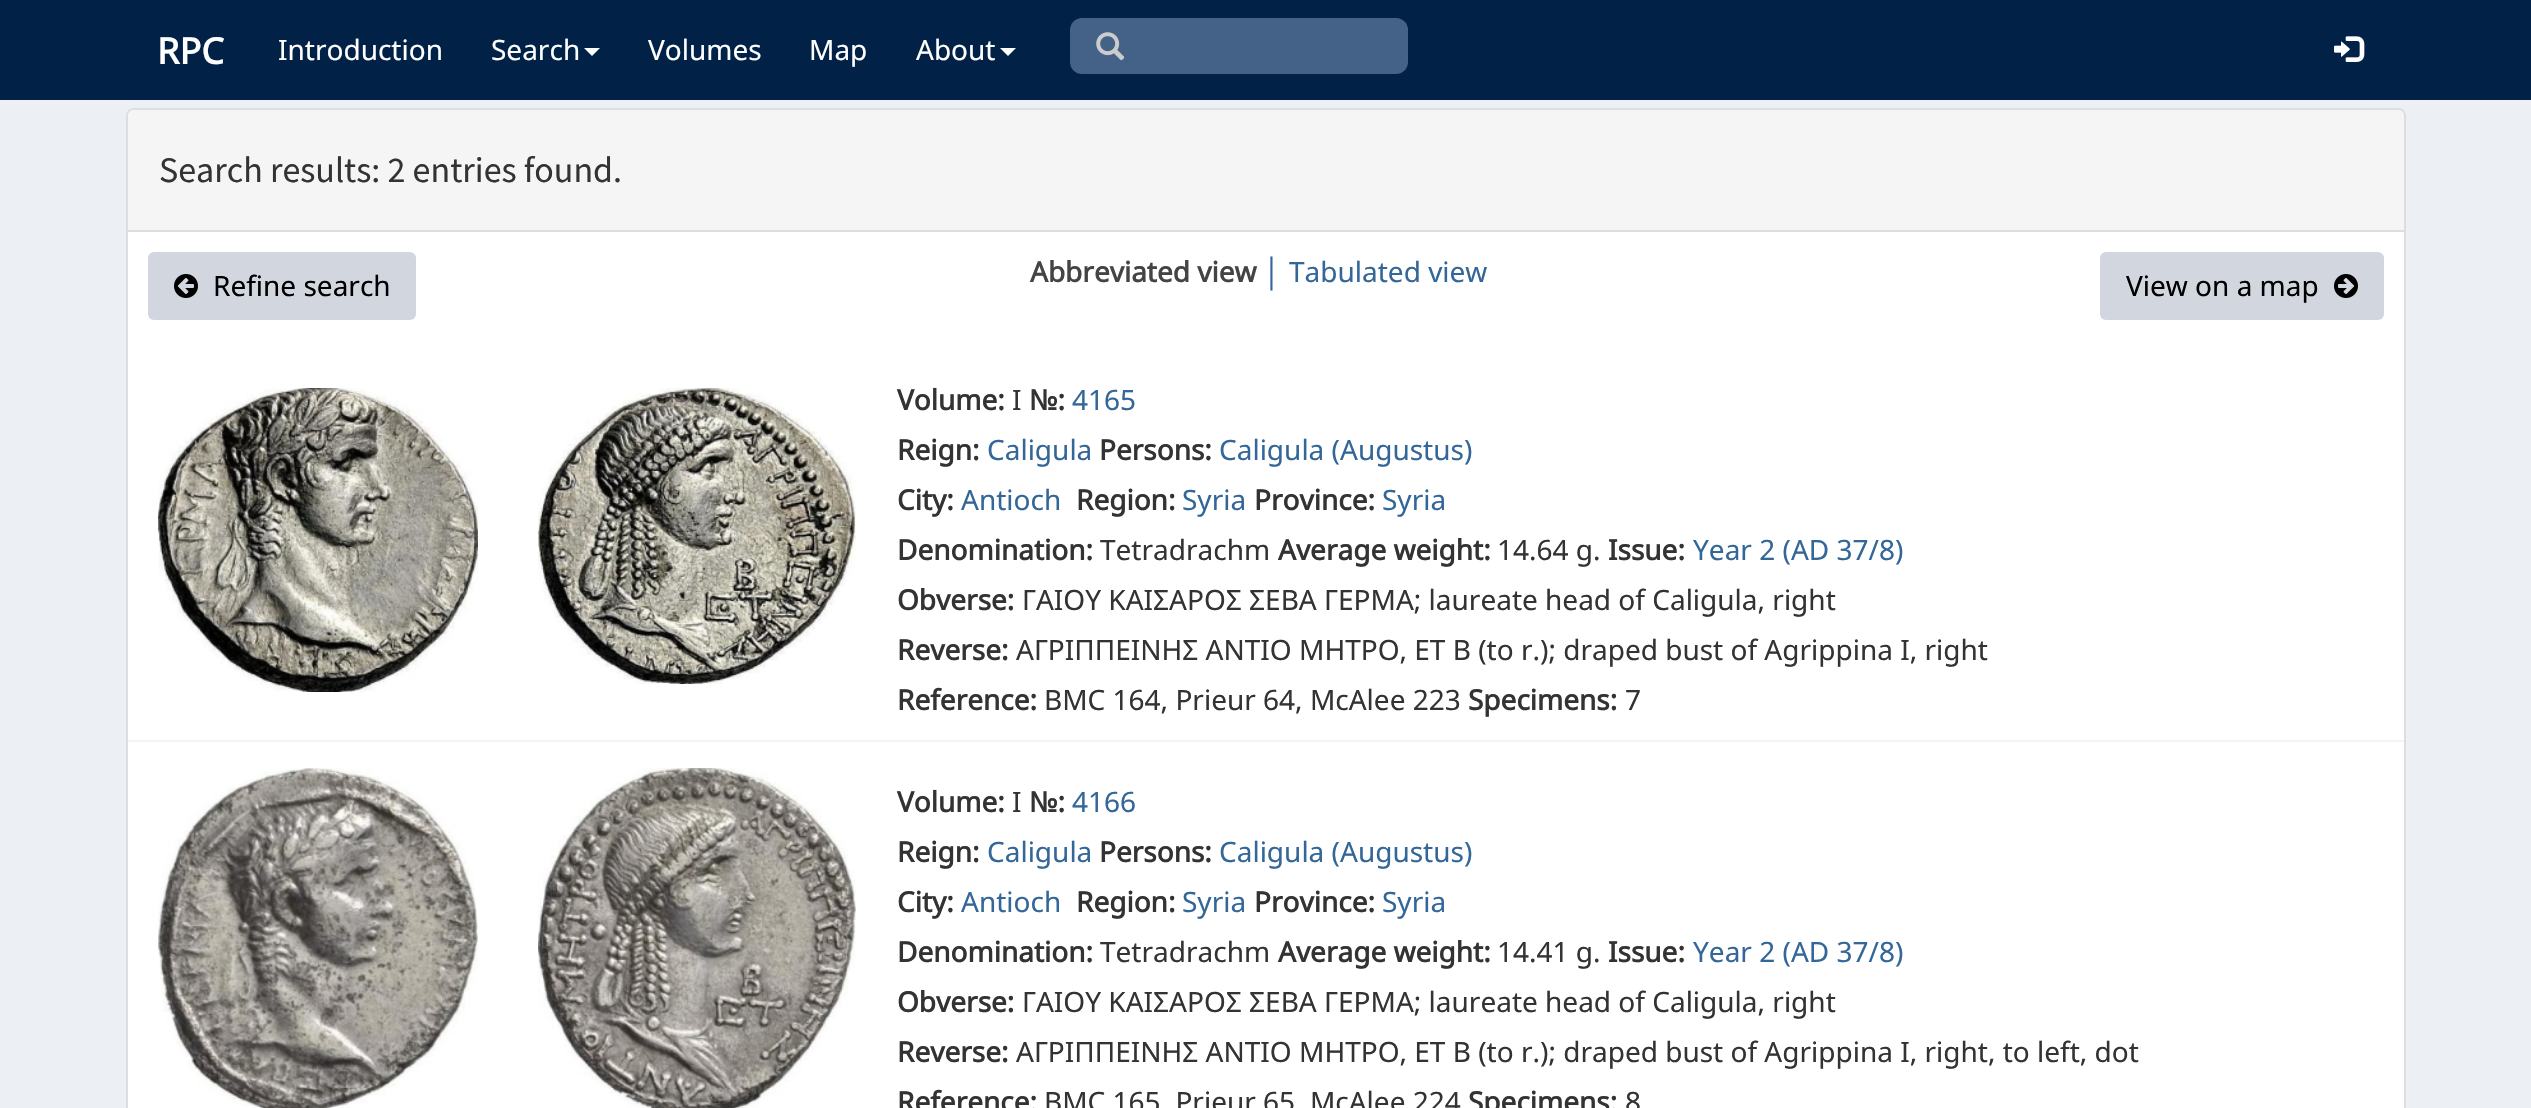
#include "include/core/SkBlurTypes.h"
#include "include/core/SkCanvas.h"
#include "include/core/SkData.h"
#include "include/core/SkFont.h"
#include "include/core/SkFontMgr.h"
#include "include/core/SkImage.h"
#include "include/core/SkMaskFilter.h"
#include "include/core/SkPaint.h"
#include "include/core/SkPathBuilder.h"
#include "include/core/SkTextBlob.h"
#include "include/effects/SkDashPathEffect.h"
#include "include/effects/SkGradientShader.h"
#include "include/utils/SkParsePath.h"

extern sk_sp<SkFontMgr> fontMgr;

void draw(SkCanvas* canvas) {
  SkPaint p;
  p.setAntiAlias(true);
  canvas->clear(SkColorSetRGB(236, 240, 245));
  p.setColor(SkColorSetRGB(1, 33, 71));
  canvas->drawRect(SkRect::MakeLTRB(0, 0, 2531, 100), p);
  p.setColor(SK_ColorWHITE);
  canvas->drawPath(SkPathBuilder().moveTo(584, 48).lineTo(600, 48).lineTo(592, 56).close().detach(), p);
  canvas->drawPath(SkPathBuilder().moveTo(1000, 48).lineTo(1016, 48).lineTo(1008, 56).close().detach(), p);
  p.setColor(SkColorSetRGB(68, 97, 135));
  canvas->drawRoundRect(SkRect::MakeLTRB(1070, 18, 1408, 74), 12, 12, p);
  canvas->drawImageRect(SkImages::DeferredFromEncodedData(SkData::MakeFromFileName("images/1.png")), SkRect::MakeLTRB(1096, 32, 1125, 61), SkSamplingOptions());
  canvas->drawImageRect(SkImages::DeferredFromEncodedData(SkData::MakeFromFileName("images/2.png")), SkRect::MakeLTRB(2334, 36, 2365, 62), SkSamplingOptions());
  p.setColor(SK_ColorWHITE);
  canvas->drawRoundRect(SkRect::MakeLTRB(127, 109, 2405, 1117), 7, 7, p);
  p.setStyle(SkPaint::kStroke_Style);
  p.setStrokeWidth(2);
  p.setColor(SkColorSetRGB(221, 221, 221));
  canvas->drawRoundRect(SkRect::MakeLTRB(127, 109, 2405, 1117), 7, 7, p);
  p.setStyle(SkPaint::kFill_Style);
  p.setColor(SkColorSetRGB(245, 245, 245));
  canvas->drawPath(SkPathBuilder().moveTo(134, 110).lineTo(2398, 110).cubicTo(2401.5f, 110, 2404, 112.5f, 2404, 116).lineTo(2404, 232).lineTo(128, 232).lineTo(128, 116).cubicTo(128, 112.5f, 130.5f, 110, 134, 110).close().detach(), p);
  p.setColor(SkColorSetRGB(221, 221, 221));
  canvas->drawRect(SkRect::MakeLTRB(128, 230, 2404, 232), p);
  p.setColor(SkColorSetRGB(210, 214, 222));
  canvas->drawRoundRect(SkRect::MakeLTRB(148, 252, 416, 320), 6, 6, p);
  canvas->drawImageRect(SkImages::DeferredFromEncodedData(SkData::MakeFromFileName("images/3.png")), SkRect::MakeLTRB(174, 274, 198, 298), SkSamplingOptions());
  canvas->drawRoundRect(SkRect::MakeLTRB(2100, 252, 2384, 320), 6, 6, p);
  canvas->drawImageRect(SkImages::DeferredFromEncodedData(SkData::MakeFromFileName("images/4.png")), SkRect::MakeLTRB(2334, 274, 2358, 298), SkSamplingOptions());
  canvas->drawImageRect(SkImages::DeferredFromEncodedData(SkData::MakeFromFileName("images/5.png")), SkRect::MakeLTRB(158, 388, 478, 692), SkSamplingOptions());
  canvas->drawImageRect(SkImages::DeferredFromEncodedData(SkData::MakeFromFileName("images/6.png")), SkRect::MakeLTRB(538, 388, 856, 684), SkSamplingOptions());
  canvas->drawImageRect(SkImages::DeferredFromEncodedData(SkData::MakeFromFileName("images/7.png")), SkRect::MakeLTRB(158, 768, 478, 1108), SkSamplingOptions());
  canvas->drawImageRect(SkImages::DeferredFromEncodedData(SkData::MakeFromFileName("images/8.png")), SkRect::MakeLTRB(538, 768, 856, 1108), SkSamplingOptions());
  p.setColor(SkColorSetRGB(244, 244, 244));
  canvas->drawRect(SkRect::MakeLTRB(128, 740, 2404, 742), p);
  SkFont font1(fontMgr->matchFamilyStyle("Noto Sans", SkFontStyle::Bold()), 36);
  font1.setSubpixel(true);
  p.setColor(SK_ColorWHITE);
  canvas->drawString("RPC", 157, 64, font1, p);
  SkFont font2(fontMgr->matchFamilyStyle("Noto Sans", SkFontStyle::Normal()), 28);
  font2.setSubpixel(true);
  canvas->drawString("Introduction", 278, 60, font2, p);
  canvas->drawString("Search", 491, 60, font2, p);
  canvas->drawString("Volumes", 648, 60, font2, p);
  canvas->drawString("Map", 809, 60, font2, p);
  canvas->drawString("About", 916, 60, font2, p);
  SkFont font3(fontMgr->matchFamilyStyle("Source Sans Pro", SkFontStyle::Normal()), 36);
  font3.setSubpixel(true);
  p.setColor(SkColorSetRGB(51, 51, 51));
  canvas->drawString("Search results: 2 entries found.", 159, 182, font3, p);
  SkFont font4(fontMgr->matchFamilyStyle("Noto Sans", SkFontStyle::Bold()), 28);
  font4.setSubpixel(true);
  p.setColor(SkColorSetRGB(68, 68, 68));
  canvas->drawString("Abbreviated view", 1030, 282, font4, p);
  SkFont font5(fontMgr->matchFamilyStyle("Liberation Sans", SkFontStyle::Normal()), 28);
  font5.setSubpixel(true);
  p.setColor(SkColorSetRGB(51, 102, 153));
  canvas->drawString("│", 1264, 282, font5, p);
  canvas->drawString("Tabulated view", 1289, 282, font2, p);
  p.setColor(SK_ColorBLACK);
  canvas->drawString("Refine search", 213, 296, font2, p);
  canvas->drawString("View on a map", 2126, 296, font2, p);
  p.setColor(SkColorSetRGB(51, 51, 51));
  canvas->drawString("Volume:", 897, 410, font4, p);
  canvas->drawString("I", 1012, 410, font2, p);
  canvas->drawString("№:", 1029, 410, font4, p);
  p.setColor(SkColorSetRGB(51, 102, 153));
  canvas->drawString("4165", 1072, 410, font2, p);
  p.setColor(SkColorSetRGB(51, 51, 51));
  canvas->drawString("Reign:", 897, 460, font4, p);
  p.setColor(SkColorSetRGB(51, 102, 153));
  canvas->drawString("Caligula", 987, 460, font2, p);
  p.setColor(SkColorSetRGB(51, 51, 51));
  canvas->drawString("Persons:", 1099, 460, font4, p);
  p.setColor(SkColorSetRGB(51, 102, 153));
  canvas->drawString("Caligula (Augustus)", 1219, 460, font2, p);
  p.setColor(SkColorSetRGB(51, 51, 51));
  canvas->drawString("City:", 897, 510, font4, p);
  p.setColor(SkColorSetRGB(51, 102, 153));
  canvas->drawString("Antioch", 961, 510, font2, p);
  p.setColor(SkColorSetRGB(51, 51, 51));
  canvas->drawString("Region:", 1076, 510, font4, p);
  p.setColor(SkColorSetRGB(51, 102, 153));
  canvas->drawString("Syria", 1182, 510, font2, p);
  p.setColor(SkColorSetRGB(51, 51, 51));
  canvas->drawString("Province:", 1254, 510, font4, p);
  p.setColor(SkColorSetRGB(51, 102, 153));
  canvas->drawString("Syria", 1382, 510, font2, p);
  p.setColor(SkColorSetRGB(51, 51, 51));
  canvas->drawString("Denomination:", 897, 560, font4, p);
  canvas->drawString("Tetradrachm", 1100, 560, font2, p);
  canvas->drawString("Average weight:", 1278, 560, font4, p);
  canvas->drawString("14.64 g.", 1497, 560, font2, p);
  canvas->drawString("Issue:", 1608, 560, font4, p);
  p.setColor(SkColorSetRGB(51, 102, 153));
  canvas->drawString("Year 2 (AD 37/8)", 1693, 560, font2, p);
  p.setColor(SkColorSetRGB(51, 51, 51));
  canvas->drawString("Obverse:", 897, 610, font4, p);
  canvas->drawString("ΓΑΙΟΥ ΚΑΙΣΑΡΟΣ ΣΕΒΑ ΓΕΡΜΑ; laureate head of Caligula, right", 1022, 610, font2, p);
  canvas->drawString("Reverse:", 897, 660, font4, p);
  canvas->drawString("ΑΓΡΙΠΠΕΙΝΗΣ ΑΝΤΙΟ ΜΗΤΡΟ, ΕΤ Β (to r.); draped bust of Agrippina I, right", 1016, 660, font2, p);
  canvas->drawString("Reference:", 897, 710, font4, p);
  canvas->drawString("BMC 164, Prieur 64, McAlee 223", 1044, 710, font2, p);
  canvas->drawString("Specimens:", 1468, 710, font4, p);
  canvas->drawString("7", 1625, 710, font2, p);
  canvas->drawString("Volume:", 897, 812, font4, p);
  canvas->drawString("I", 1012, 812, font2, p);
  canvas->drawString("№:", 1029, 812, font4, p);
  p.setColor(SkColorSetRGB(51, 102, 153));
  canvas->drawString("4166", 1072, 812, font2, p);
  p.setColor(SkColorSetRGB(51, 51, 51));
  canvas->drawString("Reign:", 897, 862, font4, p);
  p.setColor(SkColorSetRGB(51, 102, 153));
  canvas->drawString("Caligula", 987, 862, font2, p);
  p.setColor(SkColorSetRGB(51, 51, 51));
  canvas->drawString("Persons:", 1099, 862, font4, p);
  p.setColor(SkColorSetRGB(51, 102, 153));
  canvas->drawString("Caligula (Augustus)", 1219, 862, font2, p);
  p.setColor(SkColorSetRGB(51, 51, 51));
  canvas->drawString("City:", 897, 912, font4, p);
  p.setColor(SkColorSetRGB(51, 102, 153));
  canvas->drawString("Antioch", 961, 912, font2, p);
  p.setColor(SkColorSetRGB(51, 51, 51));
  canvas->drawString("Region:", 1076, 912, font4, p);
  p.setColor(SkColorSetRGB(51, 102, 153));
  canvas->drawString("Syria", 1182, 912, font2, p);
  p.setColor(SkColorSetRGB(51, 51, 51));
  canvas->drawString("Province:", 1254, 912, font4, p);
  p.setColor(SkColorSetRGB(51, 102, 153));
  canvas->drawString("Syria", 1382, 912, font2, p);
  p.setColor(SkColorSetRGB(51, 51, 51));
  canvas->drawString("Denomination:", 897, 962, font4, p);
  canvas->drawString("Tetradrachm", 1100, 962, font2, p);
  canvas->drawString("Average weight:", 1278, 962, font4, p);
  canvas->drawString("14.41 g.", 1497, 962, font2, p);
  canvas->drawString("Issue:", 1608, 962, font4, p);
  p.setColor(SkColorSetRGB(51, 102, 153));
  canvas->drawString("Year 2 (AD 37/8)", 1693, 962, font2, p);
  p.setColor(SkColorSetRGB(51, 51, 51));
  canvas->drawString("Obverse:", 897, 1012, font4, p);
  canvas->drawString("ΓΑΙΟΥ ΚΑΙΣΑΡΟΣ ΣΕΒΑ ΓΕΡΜΑ; laureate head of Caligula, right", 1022, 1012, font2, p);
  canvas->drawString("Reverse:", 897, 1062, font4, p);
  canvas->drawString("ΑΓΡΙΠΠΕΙΝΗΣ ΑΝΤΙΟ ΜΗΤΡΟ, ΕΤ Β (to r.); draped bust of Agrippina I, right, to left, dot", 1016, 1062, font2, p);
  canvas->drawString("Reference:", 897, 1112, font4, p);
  canvas->drawString("BMC 165, Prieur 65, McAlee 224", 1044, 1112, font2, p);
  canvas->drawString("Specimens:", 1468, 1112, font4, p);
  canvas->drawString("8", 1625, 1112, font2, p);
}
